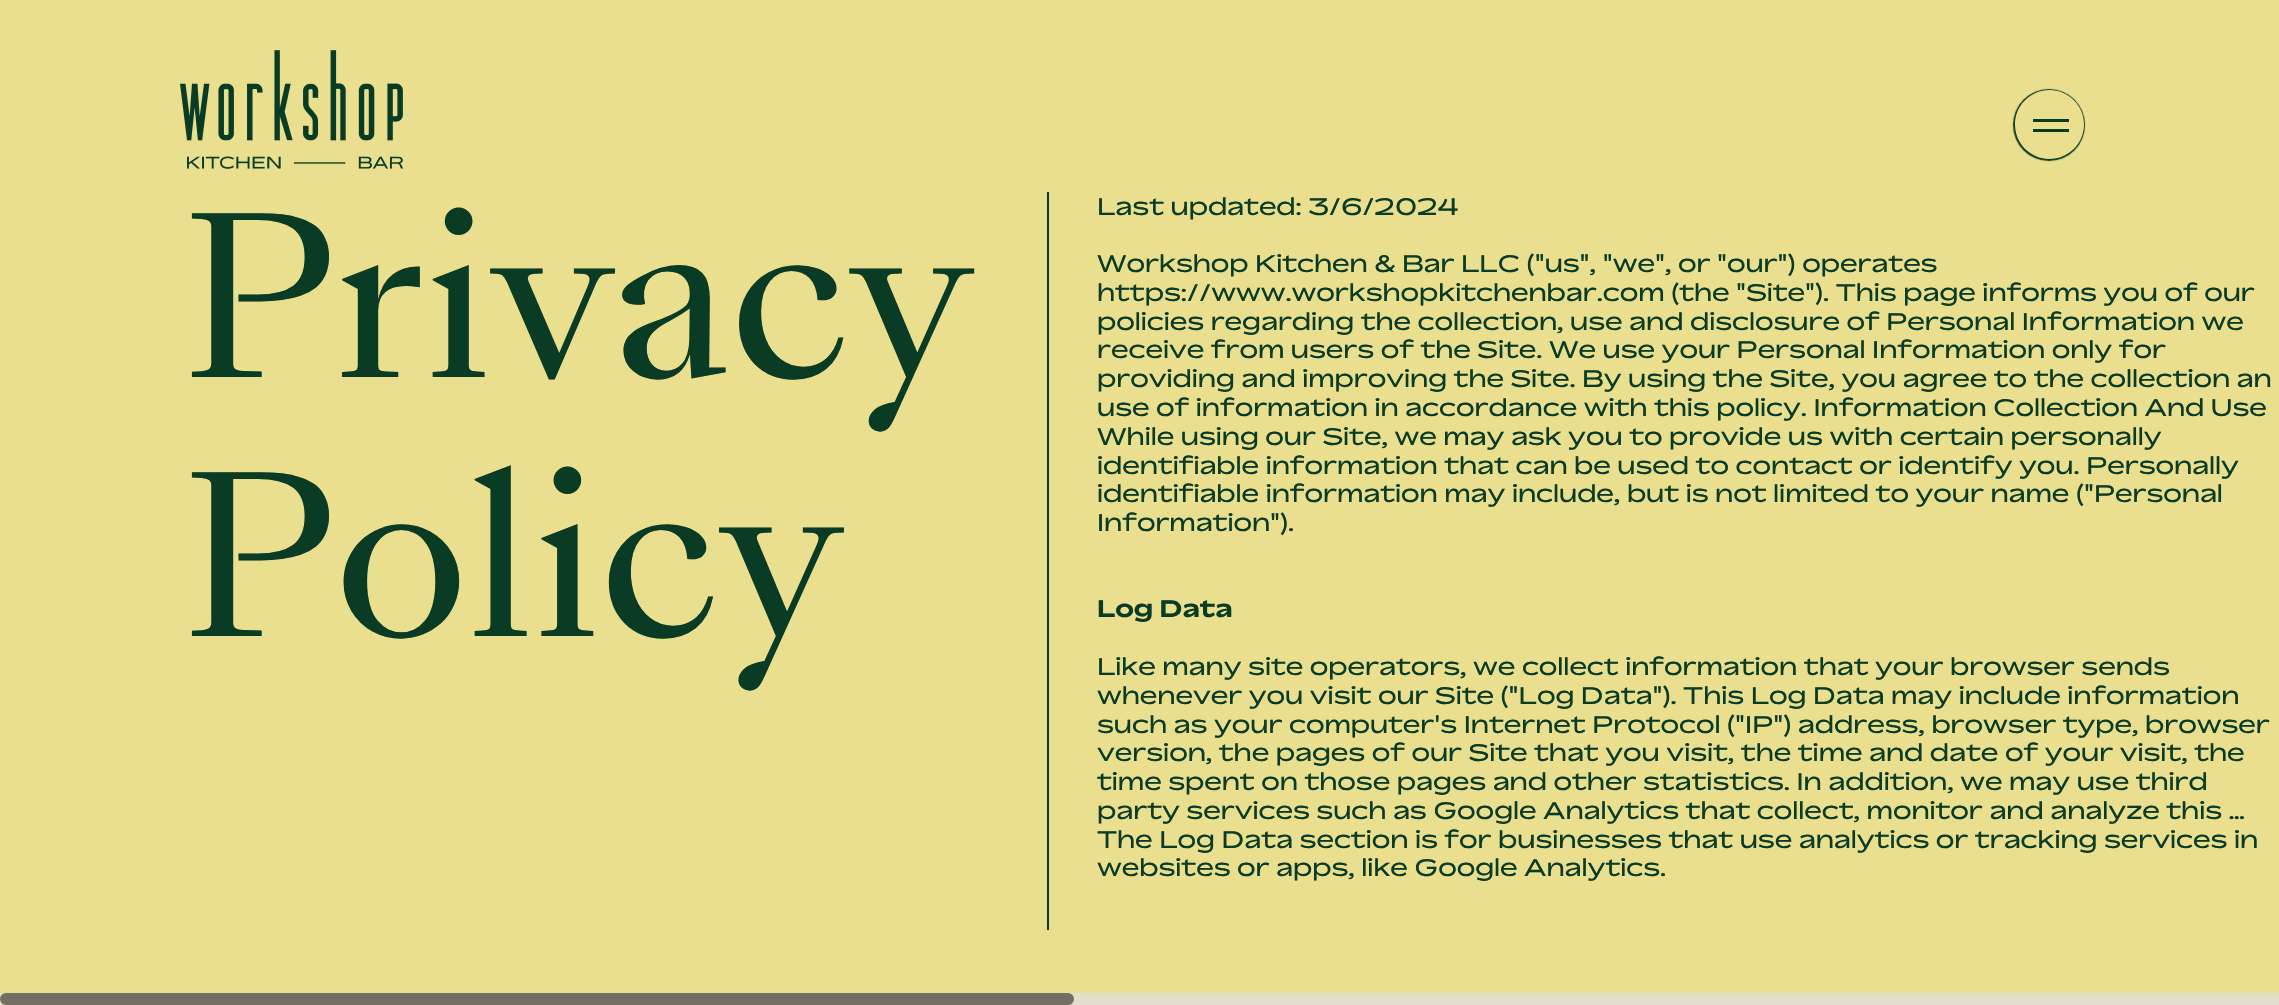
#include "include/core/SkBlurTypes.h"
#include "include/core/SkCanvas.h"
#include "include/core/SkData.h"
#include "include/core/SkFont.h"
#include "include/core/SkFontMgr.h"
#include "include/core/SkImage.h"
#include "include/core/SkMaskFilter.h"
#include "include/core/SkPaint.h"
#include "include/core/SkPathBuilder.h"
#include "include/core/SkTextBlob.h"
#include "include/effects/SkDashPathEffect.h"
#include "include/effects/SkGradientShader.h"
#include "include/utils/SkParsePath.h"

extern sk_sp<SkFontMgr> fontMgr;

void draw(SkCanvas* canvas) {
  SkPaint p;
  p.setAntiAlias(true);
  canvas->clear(SkColorSetRGB(234, 223, 143));
  canvas->drawImageRect(SkImages::DeferredFromEncodedData(SkData::MakeFromFileName("images/1.png")), SkRect::MakeLTRB(180, 50, 403, 169), SkSamplingOptions());
  canvas->save();
  canvas->clipPath(SkPathBuilder(SkPathFillType::kEvenOdd).moveTo(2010, 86).lineTo(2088, 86).lineTo(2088, 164).lineTo(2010, 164).close().moveTo(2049.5f, 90).cubicTo(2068.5f, 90, 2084, 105.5f, 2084, 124.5f).cubicTo(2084, 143.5f, 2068.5f, 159, 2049.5f, 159).cubicTo(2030.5f, 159, 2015, 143.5f, 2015, 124.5f).cubicTo(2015, 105.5f, 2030.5f, 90, 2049.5f, 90).close().detach(), true);
  p.setColor(SkColorSetRGB(10, 59, 36));
  p.setMaskFilter(SkMaskFilter::MakeBlur(kNormal_SkBlurStyle, 0.5f));
  canvas->drawRoundRect(SkRect::MakeLTRB(2013, 89, 2085, 161), 36, 36, p);
  p.setMaskFilter(nullptr);
  canvas->restore();
  canvas->drawRect(SkRect::MakeLTRB(2033, 119, 2069, 122), p);
  canvas->drawRect(SkRect::MakeLTRB(2033, 129, 2069, 132), p);
  canvas->drawRect(SkRect::MakeLTRB(1047, 192, 1049, 930), p);
  p.setColor(SkColorSetRGB(225, 222, 202));
  canvas->drawRect(SkRect::MakeLTRB(0, 993, 2279, 1005), p);
  p.setColor(SkColorSetRGB(113, 111, 101));
  canvas->drawRoundRect(SkRect::MakeLTRB(0, 993, 1074, 1005), 6, 6, p);
  SkFont font1(fontMgr->matchFamilyStyle("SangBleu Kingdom", SkFontStyle::Normal()), 216);
  font1.setSubpixel(true);
  p.setColor(SkColorSetRGB(10, 59, 36));
  canvas->drawString("Privacy", 180, 377, font1, p);
  canvas->drawString("Policy", 180, 636, font1, p);
  SkFont font2(fontMgr->matchFamilyStyle("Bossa", SkFontStyle::Normal()), 24);
  font2.setSubpixel(true);
  canvas->drawString("Last updated: 3/6/2024", 1097, 215, font2, p);
  canvas->drawString("Workshop Kitchen & Bar LLC (\"us\", \"we\", or \"our\") operates", 1097, 272, font2, p);
  canvas->drawString("https://www.workshopkitchenbar.com (the \"Site\"). This page informs you of our", 1097, 301, font2, p);
  canvas->drawString("policies regarding the collection, use and disclosure of Personal Information we", 1097, 330, font2, p);
  canvas->drawString("receive from users of the Site. We use your Personal Information only for", 1097, 358, font2, p);
  canvas->drawString("providing and improving the Site. By using the Site, you agree to the collection an", 1097, 387, font2, p);
  canvas->drawString("use of information in accordance with this policy. Information Collection And Use", 1097, 416, font2, p);
  canvas->drawString("While using our Site, we may ask you to provide us with certain personally", 1097, 445, font2, p);
  canvas->drawString("identifiable information that can be used to contact or identify you. Personally", 1097, 474, font2, p);
  canvas->drawString("identifiable information may include, but is not limited to your name (\"Personal", 1097, 502, font2, p);
  canvas->drawString("Information\").", 1097, 531, font2, p);
  SkFont font3(fontMgr->matchFamilyStyle("Bossa", SkFontStyle::Bold()), 24);
  font3.setSubpixel(true);
  canvas->drawString("Log Data", 1097, 617, font3, p);
  canvas->drawString("Like many site operators, we collect information that your browser sends", 1097, 675, font2, p);
  canvas->drawString("whenever you visit our Site (\"Log Data\"). This Log Data may include information", 1097, 704, font2, p);
  canvas->drawString("such as your computer's Internet Protocol (\"IP\") address, browser type, browser", 1097, 733, font2, p);
  canvas->drawString("version, the pages of our Site that you visit, the time and date of your visit, the", 1097, 761, font2, p);
  canvas->drawString("time spent on those pages and other statistics. In addition, we may use third", 1097, 790, font2, p);
  canvas->drawString("party services such as Google Analytics that collect, monitor and analyze this …", 1097, 819, font2, p);
  canvas->drawString("The Log Data section is for businesses that use analytics or tracking services in", 1097, 848, font2, p);
  canvas->drawString("websites or apps, like Google Analytics.", 1097, 876, font2, p);
}
